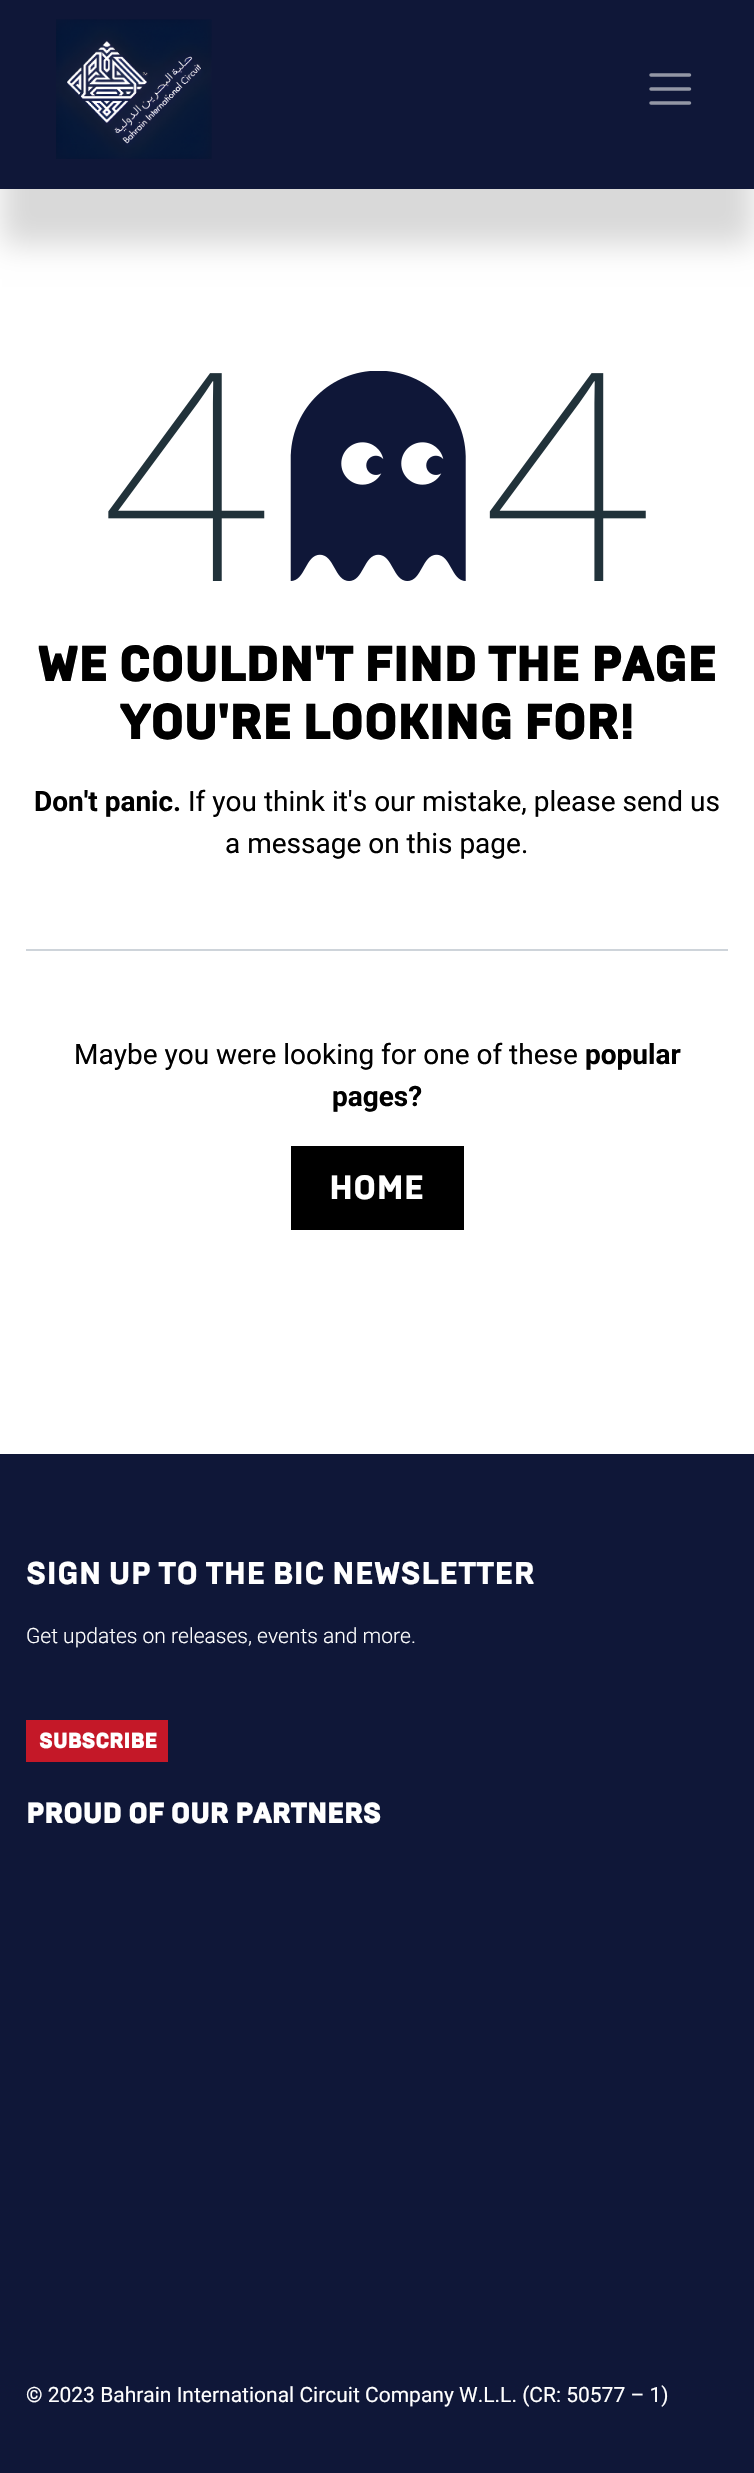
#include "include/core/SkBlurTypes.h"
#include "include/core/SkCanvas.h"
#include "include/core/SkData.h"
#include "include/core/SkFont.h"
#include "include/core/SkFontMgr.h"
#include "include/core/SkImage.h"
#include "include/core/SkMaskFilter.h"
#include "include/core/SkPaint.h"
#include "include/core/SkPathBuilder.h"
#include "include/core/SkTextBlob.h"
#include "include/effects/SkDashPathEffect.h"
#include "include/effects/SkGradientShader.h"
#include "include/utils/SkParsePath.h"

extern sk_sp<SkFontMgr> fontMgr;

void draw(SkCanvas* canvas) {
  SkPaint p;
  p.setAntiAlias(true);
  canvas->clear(SK_ColorWHITE);
  p.setColor(SkColorSetARGB(38, 0, 0, 0));
  p.setMaskFilter(SkMaskFilter::MakeBlur(kNormal_SkBlurStyle, 14));
  canvas->drawRect(SkRect::MakeLTRB(2, 60, 753, 245), p);
  p.setMaskFilter(nullptr);
  p.setColor(SkColorSetRGB(15, 23, 56));
  canvas->drawRect(SkRect::MakeLTRB(0, 0, 754, 189), p);
  canvas->drawImageRect(SkImages::DeferredFromEncodedData(SkData::MakeFromFileName("images/1.png")), SkRect::MakeLTRB(56, 19, 212, 159), SkSamplingOptions());
  p.setStyle(SkPaint::kStroke_Style);
  p.setStrokeWidth(3.5f);
  p.setStrokeCap(SkPaint::kRound_Cap);
  p.setColor(SkColorSetRGB(147, 151, 165));
  canvas->drawPath(SkPathBuilder().moveTo(651, 75).lineTo(689.5f, 75).moveTo(651, 89).lineTo(689.5f, 89).moveTo(651, 103).lineTo(689.5f, 103).detach(), p);
  canvas->drawImageRect(SkImages::DeferredFromEncodedData(SkData::MakeFromFileName("images/2.png")), SkRect::MakeLTRB(108, 371, 646, 581), SkSamplingOptions());
  p.setStyle(SkPaint::kFill_Style);
  p.setColor(SkColorSetRGB(206, 212, 218));
  canvas->drawRect(SkRect::MakeLTRB(26, 949, 728, 951), p);
  p.setColor(SK_ColorBLACK);
  canvas->drawRect(SkRect::MakeLTRB(293, 1148, 462, 1228), p);
  p.setStyle(SkPaint::kStroke_Style);
  p.setStrokeWidth(4);
  p.setStrokeCap(SkPaint::kButt_Cap);
  canvas->drawRect(SkRect::MakeLTRB(293, 1148, 462, 1228), p);
  p.setStyle(SkPaint::kFill_Style);
  p.setColor(SkColorSetRGB(15, 23, 56));
  canvas->drawRect(SkRect::MakeLTRB(0, 1454, 754, 2473), p);
  p.setColor(SkColorSetRGB(196, 24, 40));
  canvas->drawRect(SkRect::MakeLTRB(26, 1720, 168, 1762), p);
  SkFont font1(fontMgr->matchFamilyStyle("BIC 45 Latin", SkFontStyle::Bold()), 48.3f);
  font1.setSubpixel(true);
  p.setColor(SK_ColorBLACK);
  canvas->drawString("We couldn't find the page", 37, 681, font1, p);
  canvas->drawString("you're looking for!", 120, 739, font1, p);
  SkFont font2(fontMgr->matchFamilyStyle("Roboto", SkFontStyle::Bold()), 28);
  font2.setSubpixel(true);
  canvas->drawString("Don't panic.", 34, 811, font2, p);
  SkFont font3(fontMgr->matchFamilyStyle("Roboto", SkFontStyle::Normal()), 28);
  font3.setSubpixel(true);
  canvas->drawString("If you think it's our mistake, please send us", 188, 811, font3, p);
  canvas->drawString("a message on this page.", 225, 853, font3, p);
  canvas->drawString("Maybe you were looking for one of these", 74, 1064, font3, p);
  canvas->drawString("popular", 585, 1064, font2, p);
  canvas->drawString("pages?", 332, 1106, font2, p);
  SkFont font4(fontMgr->matchFamilyStyle("BIC 45 Latin", SkFontStyle::Normal()), 33.5f);
  font4.setSubpixel(true);
  p.setColor(SK_ColorWHITE);
  canvas->drawString("Home", 329, 1199, font4, p);
  SkFont font5(fontMgr->matchFamilyStyle("BIC 45 Latin", SkFontStyle::Normal()), 31.5f);
  font5.setSubpixel(true);
  canvas->drawString("SIGN UP TO THE BIC NEWSLETTER", 26, 1584, font5, p);
  SkFont font6(fontMgr->matchFamilyStyle("Roboto", SkFontStyle(300, SkFontStyle::kNormal_Width, SkFontStyle::kUpright_Slant)), 21);
  font6.setSubpixel(true);
  canvas->drawString("Get updates on releases, events and more.", 26, 1643, font6, p);
  SkFont font7(fontMgr->matchFamilyStyle("BIC 45 Latin", SkFontStyle::Bold()), 21);
  font7.setSubpixel(true);
  canvas->drawString("SUBSCRIBE", 39, 1748, font7, p);
  SkFont font8(fontMgr->matchFamilyStyle("BIC 45 Latin", SkFontStyle::Bold()), 28);
  font8.setSubpixel(true);
  canvas->drawString("PROUD OF OUR PARTNERS", 26, 1823, font8, p);
  SkFont font9(fontMgr->matchFamilyStyle("Roboto", SkFontStyle::Normal()), 21);
  font9.setSubpixel(true);
  canvas->drawString("© 2023 Bahrain International Circuit Company W.L.L. (CR: 50577 – 1)", 26, 2402, font9, p);
}
